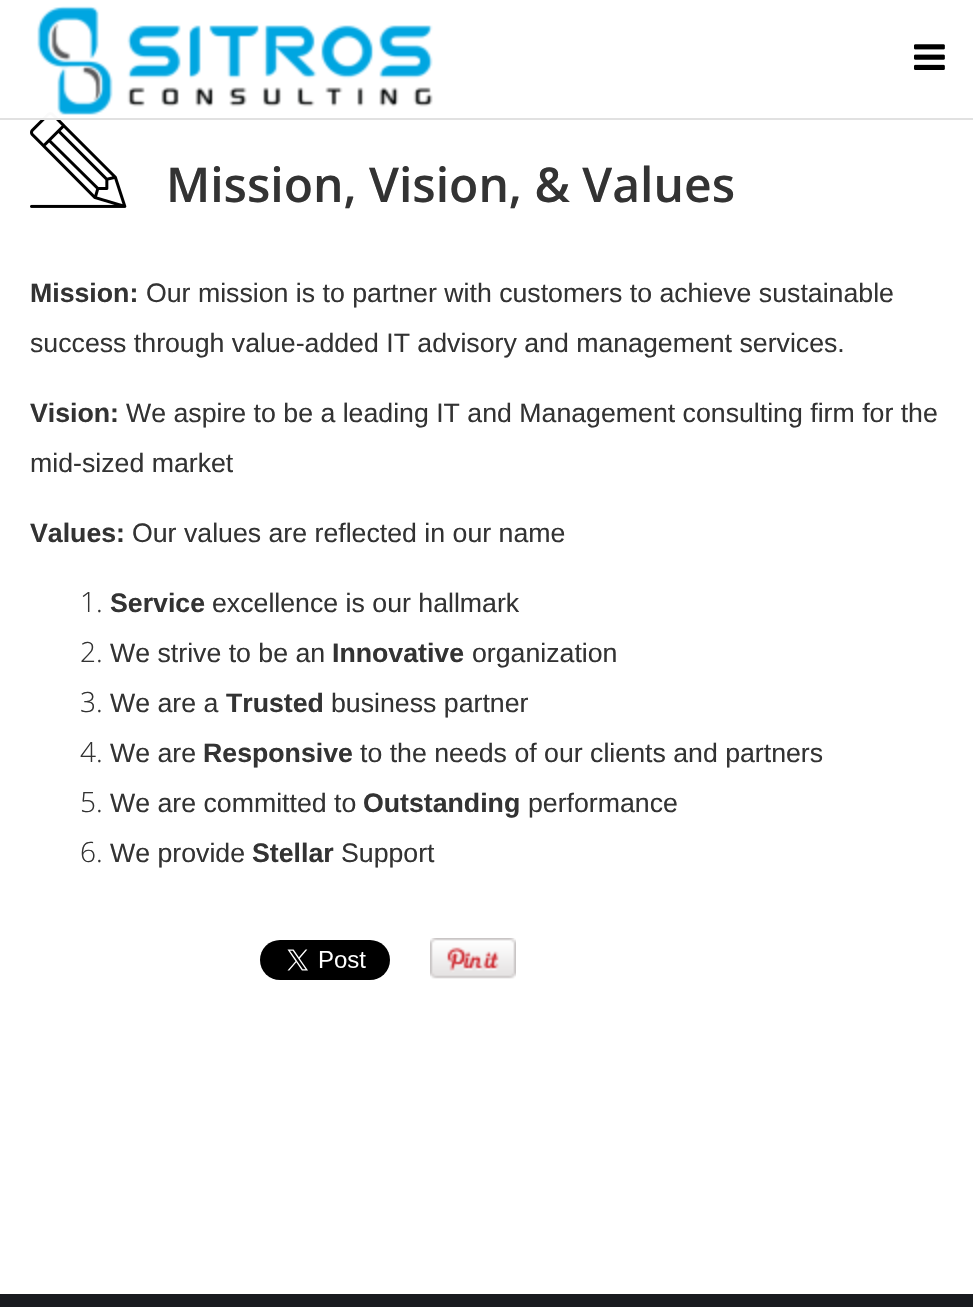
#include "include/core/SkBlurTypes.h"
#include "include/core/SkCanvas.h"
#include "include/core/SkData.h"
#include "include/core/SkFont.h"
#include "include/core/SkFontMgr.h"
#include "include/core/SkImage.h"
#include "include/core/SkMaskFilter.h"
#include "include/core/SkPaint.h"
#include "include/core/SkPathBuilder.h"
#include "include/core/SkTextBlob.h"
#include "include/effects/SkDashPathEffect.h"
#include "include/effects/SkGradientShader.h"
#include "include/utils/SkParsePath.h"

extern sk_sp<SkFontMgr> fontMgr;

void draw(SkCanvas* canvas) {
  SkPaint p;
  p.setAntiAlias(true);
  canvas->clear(SK_ColorWHITE);
  canvas->drawImageRect(SkImages::DeferredFromEncodedData(SkData::MakeFromFileName("images/3.png")), SkRect::MakeLTRB(30, 112, 127, 208), SkSamplingOptions());
  p.setColor(SkColorSetARGB(250, 255, 255, 255));
  canvas->drawRect(SkRect::MakeLTRB(42, 112, 59, 118), p);
  p.setColor(SkColorSetRGB(225, 225, 225));
  canvas->drawRect(SkRect::MakeLTRB(0, 118, 973, 120), p);
  canvas->drawImageRect(SkImages::DeferredFromEncodedData(SkData::MakeFromFileName("images/1.png")), SkRect::MakeLTRB(37, 6, 433, 115), SkSamplingOptions());
  canvas->drawImageRect(SkImages::DeferredFromEncodedData(SkData::MakeFromFileName("images/2.png")), SkRect::MakeLTRB(914, 44, 945, 70), SkSamplingOptions());
  canvas->drawImageRect(SkImages::DeferredFromEncodedData(SkData::MakeFromFileName("images/4.png")), SkRect::MakeLTRB(260, 940, 390, 980), SkSamplingOptions());
  canvas->drawImageRect(SkImages::DeferredFromEncodedData(SkData::MakeFromFileName("images/5.png")), SkRect::MakeLTRB(430, 938, 516, 979), SkSamplingOptions());
  p.setColor(SkColorSetRGB(25, 27, 31));
  canvas->drawRect(SkRect::MakeLTRB(0, 1294, 973, 1307), p);
  SkFont font1(fontMgr->matchFamilyStyle("Open Sans", SkFontStyle(600, SkFontStyle::kNormal_Width, SkFontStyle::kUpright_Slant)), 48);
  font1.setSubpixel(true);
  p.setColor(SkColorSetRGB(51, 51, 51));
  canvas->drawString("Mission, Vision, & Values", 166, 202, font1, p);
  SkFont font2(fontMgr->matchFamilyStyle("Liberation Sans", SkFontStyle::Bold()), 26.7f);
  font2.setSubpixel(true);
  canvas->drawString("Mission:", 30, 302, font2, p);
  SkFont font3(fontMgr->matchFamilyStyle("Liberation Sans", SkFontStyle::Normal()), 26.7f);
  font3.setSubpixel(true);
  canvas->drawString("Our mission is to partner with customers to achieve sustainable", 146, 302, font3, p);
  canvas->drawString("success through value-added IT advisory and management services.", 30, 352, font3, p);
  canvas->drawString("Vision:", 30, 422, font2, p);
  canvas->drawString("We aspire to be a leading IT and Management consulting firm for the", 126, 422, font3, p);
  canvas->drawString("mid-sized market", 30, 472, font3, p);
  canvas->drawString("Values:", 30, 542, font2, p);
  canvas->drawString("Our values are reflected in our name", 132, 542, font3, p);
  SkFont font4(fontMgr->matchFamilyStyle("Open Sans", SkFontStyle(300, SkFontStyle::kNormal_Width, SkFontStyle::kUpright_Slant)), 28);
  font4.setSubpixel(true);
  canvas->drawString("1.", 80, 612, font4, p);
  canvas->drawString("Service", 110, 612, font2, p);
  canvas->drawString("excellence is our hallmark", 212, 612, font3, p);
  canvas->drawString("2.", 80, 662, font4, p);
  canvas->drawString("We strive to be an", 110, 662, font3, p);
  canvas->drawString("Innovative", 332, 662, font2, p);
  canvas->drawString("organization", 472, 662, font3, p);
  canvas->drawString("3.", 80, 712, font4, p);
  canvas->drawString("We are a", 110, 712, font3, p);
  canvas->drawString("Trusted", 226, 712, font2, p);
  canvas->drawString("business partner", 331, 712, font3, p);
  canvas->drawString("4.", 80, 762, font4, p);
  canvas->drawString("We are", 110, 762, font3, p);
  canvas->drawString("Responsive", 203, 762, font2, p);
  canvas->drawString("to the needs of our clients and partners", 360, 762, font3, p);
  canvas->drawString("5.", 80, 812, font4, p);
  canvas->drawString("We are committed to", 110, 812, font3, p);
  canvas->drawString("Outstanding", 363, 812, font2, p);
  canvas->drawString("performance", 528, 812, font3, p);
  canvas->drawString("6.", 80, 862, font4, p);
  canvas->drawString("We provide", 110, 862, font3, p);
  canvas->drawString("Stellar", 252, 862, font2, p);
  canvas->drawString("Support", 341, 862, font3, p);
}
